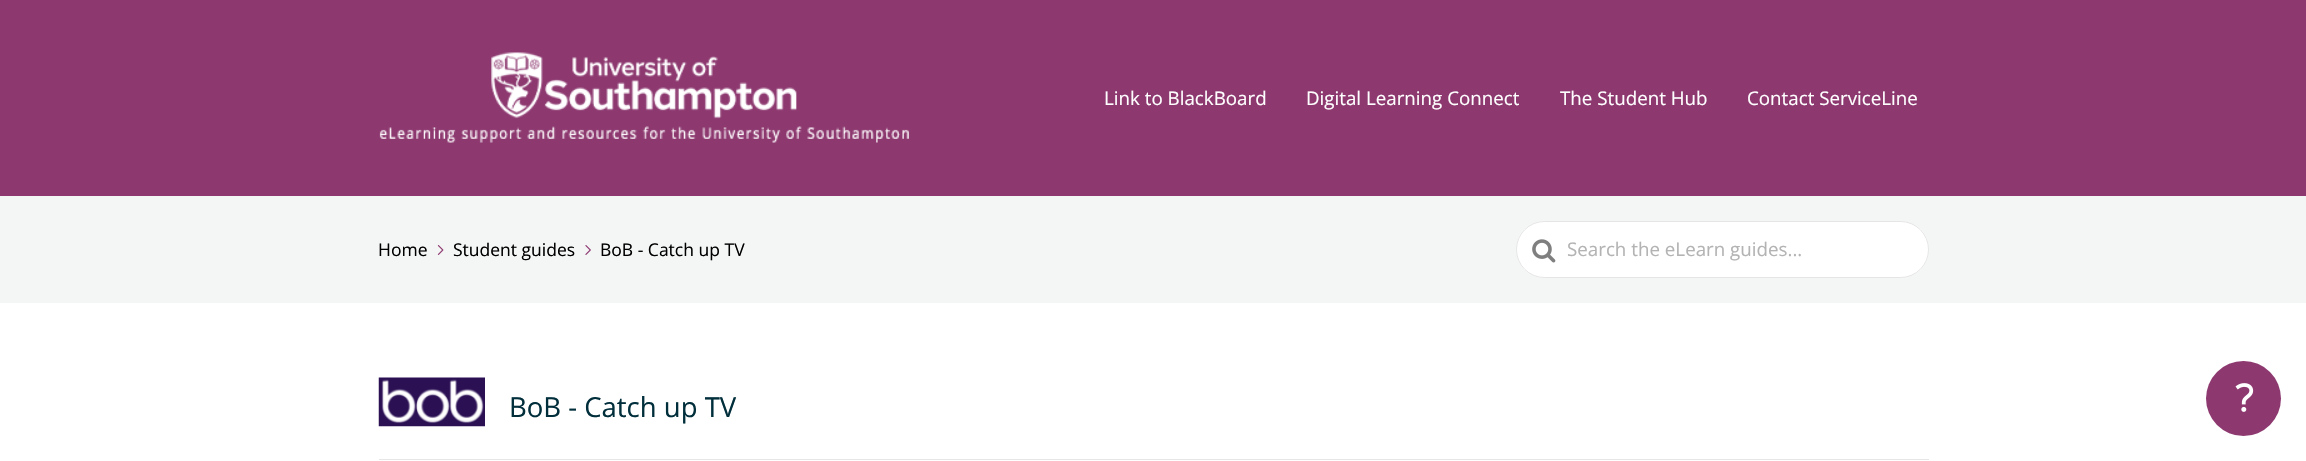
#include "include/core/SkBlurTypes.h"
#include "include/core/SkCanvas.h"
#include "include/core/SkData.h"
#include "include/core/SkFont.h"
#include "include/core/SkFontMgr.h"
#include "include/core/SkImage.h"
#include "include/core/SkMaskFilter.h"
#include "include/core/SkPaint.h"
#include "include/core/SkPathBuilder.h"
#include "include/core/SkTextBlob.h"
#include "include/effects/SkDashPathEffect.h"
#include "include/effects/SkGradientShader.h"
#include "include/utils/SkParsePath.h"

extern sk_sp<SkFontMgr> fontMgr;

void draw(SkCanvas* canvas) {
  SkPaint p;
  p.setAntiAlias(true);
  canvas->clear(SK_ColorWHITE);
  p.setColor(SkColorSetRGB(141, 57, 112));
  canvas->drawRect(SkRect::MakeLTRB(0, 0, 2306, 196), p);
  canvas->drawImageRect(SkImages::DeferredFromEncodedData(SkData::MakeFromFileName("images/1.png")), SkRect::MakeLTRB(379, 52, 909, 143), SkSamplingOptions());
  p.setColor(SkColorSetRGB(244, 245, 245));
  canvas->drawRect(SkRect::MakeLTRB(0, 196, 2306, 303), p);
  canvas->drawImageRect(SkImages::DeferredFromEncodedData(SkData::MakeFromFileName("images/2.png")), SkRect::MakeLTRB(437, 245, 444, 255), SkSamplingOptions());
  canvas->drawImageRect(SkImages::DeferredFromEncodedData(SkData::MakeFromFileName("images/3.png")), SkRect::MakeLTRB(585, 245, 591, 255), SkSamplingOptions());
  p.setColor(SK_ColorWHITE);
  canvas->drawRoundRect(SkRect::MakeLTRB(1516, 221, 1929, 278), 28.5f, 28.5f, p);
  p.setStyle(SkPaint::kStroke_Style);
  p.setStrokeWidth(1);
  p.setColor(SkColorSetARGB(128, 204, 204, 204));
  canvas->drawRoundRect(SkRect::MakeLTRB(1516.5f, 221.5f, 1928.5f, 277.5f), 28, 28, p);
  canvas->drawImageRect(SkImages::DeferredFromEncodedData(SkData::MakeFromFileName("images/4.png")), SkRect::MakeLTRB(1532, 239, 1556, 263), SkSamplingOptions());
  p.setStyle(SkPaint::kFill_Style);
  p.setColor(SkColorSetRGB(230, 230, 230));
  canvas->drawRect(SkRect::MakeLTRB(379, 459, 1929, 460), p);
  canvas->drawImageRect(SkImages::DeferredFromEncodedData(SkData::MakeFromFileName("images/5.png")), SkRect::MakeLTRB(378, 377, 485, 427), SkSamplingOptions());
  p.setColor(SkColorSetRGB(141, 57, 112));
  canvas->drawCircle(2243.5f, 398.5f, 37.5f, p);
  canvas->drawImageRect(SkImages::DeferredFromEncodedData(SkData::MakeFromFileName("images/6.png")), SkRect::MakeLTRB(2235, 383, 2254, 412), SkSamplingOptions());
  SkFont font1(fontMgr->matchFamilyStyle("Open Sans", SkFontStyle::Normal()), 18.75f);
  font1.setSubpixel(true);
  p.setColor(SK_ColorWHITE);
  canvas->drawString("Link to BlackBoard", 1104, 105, font1, p);
  canvas->drawString("Digital Learning Connect", 1306, 105, font1, p);
  canvas->drawString("The Student Hub", 1560, 105, font1, p);
  canvas->drawString("Contact ServiceLine", 1747, 105, font1, p);
  SkFont font2(fontMgr->matchFamilyStyle("Open Sans", SkFontStyle::Normal()), 17.5f);
  font2.setSubpixel(true);
  p.setColor(SK_ColorBLACK);
  canvas->drawString("Home", 378, 256, font2, p);
  canvas->drawString("Student guides", 453, 256, font2, p);
  canvas->drawString("BoB - Catch up TV", 600, 256, font2, p);
  p.setColor(SkColorSetRGB(179, 179, 179));
  canvas->drawString("Search the eLearn guides...", 1567, 256, font1, p);
  SkFont font3(fontMgr->matchFamilyStyle("Open Sans", SkFontStyle::Normal()), 27.5f);
  font3.setSubpixel(true);
  p.setColor(SkColorSetRGB(0, 46, 59));
  canvas->drawString("BoB - Catch up TV", 509, 417, font3, p);
}
